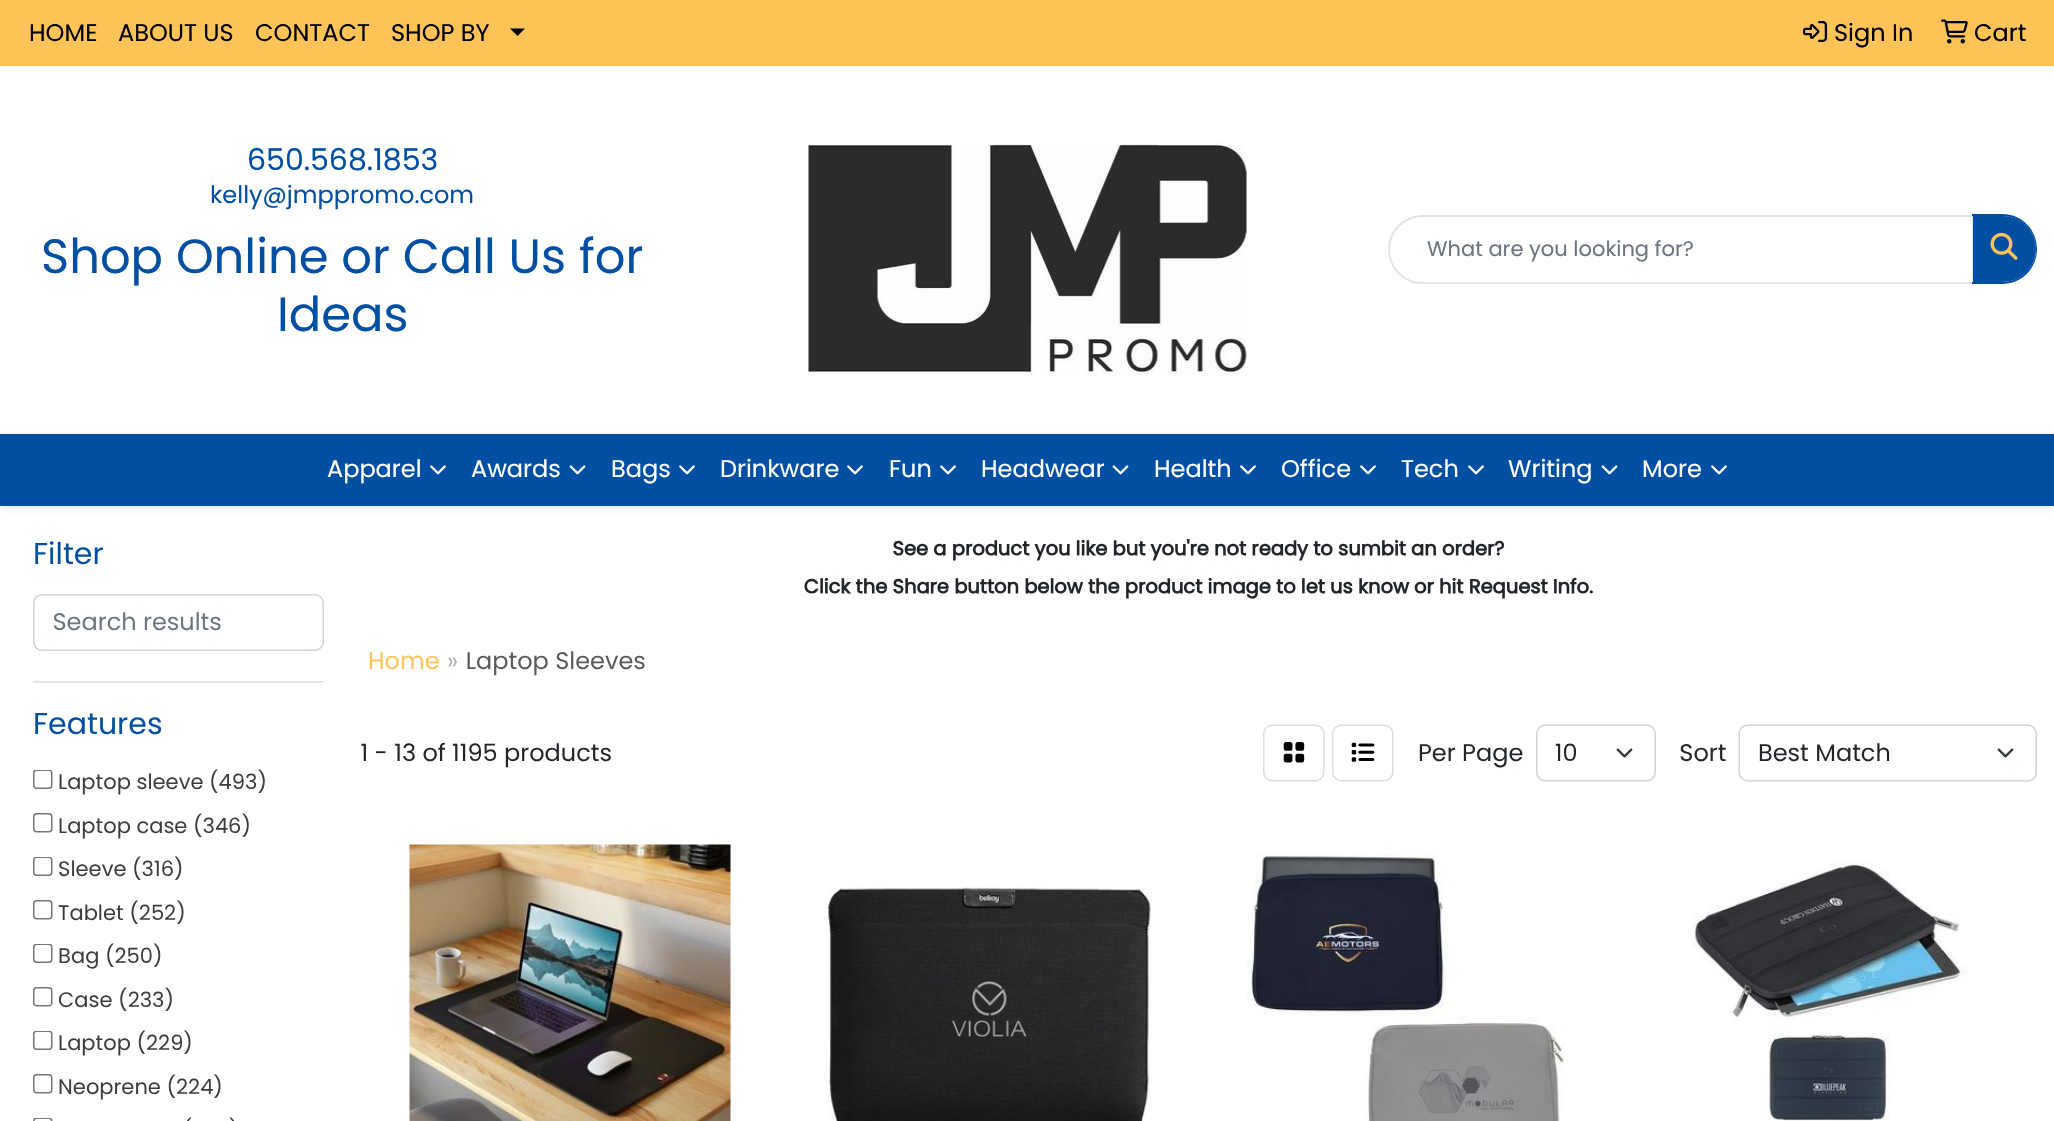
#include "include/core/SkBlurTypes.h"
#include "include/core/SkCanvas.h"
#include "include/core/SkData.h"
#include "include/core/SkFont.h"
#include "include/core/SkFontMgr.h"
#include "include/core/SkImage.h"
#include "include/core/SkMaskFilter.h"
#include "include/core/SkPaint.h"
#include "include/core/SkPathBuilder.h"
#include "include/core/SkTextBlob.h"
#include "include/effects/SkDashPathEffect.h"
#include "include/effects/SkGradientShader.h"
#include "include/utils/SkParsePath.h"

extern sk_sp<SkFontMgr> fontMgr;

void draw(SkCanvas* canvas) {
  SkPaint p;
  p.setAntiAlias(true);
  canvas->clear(SK_ColorWHITE);
  p.setColor(SkColorSetRGB(255, 195, 87));
  canvas->drawRect(SkRect::MakeLTRB(0, 0, 2054, 66), p);
  p.setColor(SK_ColorBLACK);
  canvas->drawPath(SkPathBuilder().moveTo(510, 28.5f).lineTo(525, 28.5f).lineTo(517.5f, 36).close().detach(), p);
  canvas->drawImageRect(SkImages::DeferredFromEncodedData(SkData::MakeFromFileName("images/1.png")), SkRect::MakeLTRB(1803, 21, 1827, 42), SkSamplingOptions());
  canvas->drawImageRect(SkImages::DeferredFromEncodedData(SkData::MakeFromFileName("images/2.png")), SkRect::MakeLTRB(1941, 19, 1968, 44), SkSamplingOptions());
  canvas->drawImageRect(SkImages::DeferredFromEncodedData(SkData::MakeFromFileName("images/3.png")), SkRect::MakeLTRB(808, 143, 1247, 376), SkSamplingOptions());
  p.setStyle(SkPaint::kStroke_Style);
  p.setStrokeWidth(2);
  p.setColor(SkColorSetRGB(228, 228, 228));
  canvas->drawPath(SkPathBuilder().moveTo(1422.5f, 216).lineTo(1973, 216).lineTo(1973, 283).lineTo(1422.5f, 283).cubicTo(1404, 283, 1389, 268, 1389, 249.5f).cubicTo(1389, 231, 1404, 216, 1422.5f, 216).close().detach(), p);
  p.setStyle(SkPaint::kFill_Style);
  p.setColor(SkColorSetRGB(0, 79, 163));
  canvas->drawPath(SkPathBuilder().moveTo(1973, 216).lineTo(2003, 216).cubicTo(2021, 216, 2036, 231, 2036, 249).cubicTo(2036, 267, 2021, 282, 2003, 282).lineTo(1973, 282).close().detach(), p);
  canvas->drawPath(SkPathBuilder(SkPathFillType::kEvenOdd).moveTo(1972, 214).lineTo(2002, 214).cubicTo(2022, 214, 2037, 230, 2037, 249).cubicTo(2037, 268, 2022, 284, 2002, 284).lineTo(1972, 284).close().moveTo(1972, 216).lineTo(2002, 216).cubicTo(2021, 216, 2036, 231, 2036, 249).cubicTo(2036, 267, 2021, 282, 2002, 282).lineTo(1972, 282).close().detach(), p);
  canvas->drawImageRect(SkImages::DeferredFromEncodedData(SkData::MakeFromFileName("images/4.png")), SkRect::MakeLTRB(1990, 232, 2018, 260), SkSamplingOptions());
  p.setColor(SkColorSetARGB(18, 0, 0, 0));
  p.setMaskFilter(SkMaskFilter::MakeBlur(kNormal_SkBlurStyle, 3));
  canvas->drawRect(SkRect::MakeLTRB(0, 437, 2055, 509), p);
  p.setMaskFilter(nullptr);
  p.setColor(SkColorSetRGB(0, 79, 163));
  canvas->drawRect(SkRect::MakeLTRB(0, 434, 2054, 506), p);
  canvas->drawImageRect(SkImages::DeferredFromEncodedData(SkData::MakeFromFileName("images/5.png")), SkRect::MakeLTRB(430, 465, 446, 475), SkSamplingOptions());
  canvas->drawImageRect(SkImages::DeferredFromEncodedData(SkData::MakeFromFileName("images/6.png")), SkRect::MakeLTRB(569, 465, 586, 475), SkSamplingOptions());
  canvas->drawImageRect(SkImages::DeferredFromEncodedData(SkData::MakeFromFileName("images/5.png")), SkRect::MakeLTRB(679, 465, 695, 475), SkSamplingOptions());
  canvas->drawImageRect(SkImages::DeferredFromEncodedData(SkData::MakeFromFileName("images/5.png")), SkRect::MakeLTRB(847, 465, 863, 475), SkSamplingOptions());
  canvas->drawImageRect(SkImages::DeferredFromEncodedData(SkData::MakeFromFileName("images/5.png")), SkRect::MakeLTRB(940, 465, 956, 475), SkSamplingOptions());
  canvas->drawImageRect(SkImages::DeferredFromEncodedData(SkData::MakeFromFileName("images/6.png")), SkRect::MakeLTRB(1112, 465, 1129, 475), SkSamplingOptions());
  canvas->drawImageRect(SkImages::DeferredFromEncodedData(SkData::MakeFromFileName("images/5.png")), SkRect::MakeLTRB(1240, 465, 1256, 475), SkSamplingOptions());
  canvas->drawImageRect(SkImages::DeferredFromEncodedData(SkData::MakeFromFileName("images/5.png")), SkRect::MakeLTRB(1360, 465, 1376, 475), SkSamplingOptions());
  canvas->drawImageRect(SkImages::DeferredFromEncodedData(SkData::MakeFromFileName("images/5.png")), SkRect::MakeLTRB(1468, 465, 1484, 475), SkSamplingOptions());
  canvas->drawImageRect(SkImages::DeferredFromEncodedData(SkData::MakeFromFileName("images/6.png")), SkRect::MakeLTRB(1601, 465, 1618, 475), SkSamplingOptions());
  canvas->drawImageRect(SkImages::DeferredFromEncodedData(SkData::MakeFromFileName("images/5.png")), SkRect::MakeLTRB(1711, 465, 1727, 475), SkSamplingOptions());
  canvas->drawImageRect(SkImages::DeferredFromEncodedData(SkData::MakeFromFileName("images/7.png")), SkRect::MakeLTRB(33, 539, 2037, 1121), SkSamplingOptions());
  SkFont font1(fontMgr->matchFamilyStyle("Poppins", SkFontStyle::Normal()), 24);
  font1.setSubpixel(true);
  p.setColor(SK_ColorBLACK);
  canvas->drawString("HOME", 29, 41, font1, p);
  canvas->drawString("ABOUT US", 118, 41, font1, p);
  canvas->drawString("CONTACT", 255, 41, font1, p);
  canvas->drawString("SHOP BY", 391, 41, font1, p);
  canvas->drawString("Sign In", 1834, 41, font1, p);
  canvas->drawString("Cart", 1974, 41, font1, p);
  SkFont font2(fontMgr->matchFamilyStyle("Poppins", SkFontStyle::Normal()), 30);
  font2.setSubpixel(true);
  p.setColor(SkColorSetRGB(0, 79, 163));
  canvas->drawString("650.568.1853", 247, 170, font2, p);
  canvas->drawString("kelly@jmppromo.com", 210, 203, font1, p);
  SkFont font3(fontMgr->matchFamilyStyle("Poppins", SkFontStyle::Normal()), 48);
  font3.setSubpixel(true);
  canvas->drawString("Shop Online or Call Us for", 41, 273, font3, p);
  canvas->drawString("Ideas", 277, 331, font3, p);
  SkFont font4(fontMgr->matchFamilyStyle("Poppins", SkFontStyle::Normal()), 21);
  font4.setSubpixel(true);
  p.setColor(SkColorSetRGB(108, 117, 125));
  canvas->drawString("What are you looking for?", 1427, 256, font4, p);
  p.setColor(SK_ColorWHITE);
  canvas->drawString("Apparel", 327, 477, font1, p);
  canvas->drawString("Awards", 471, 477, font1, p);
  canvas->drawString("Bags", 611, 477, font1, p);
  canvas->drawString("Drinkware", 720, 477, font1, p);
  canvas->drawString("Fun", 889, 477, font1, p);
  canvas->drawString("Headwear", 981, 477, font1, p);
  canvas->drawString("Health", 1154, 477, font1, p);
  canvas->drawString("Office", 1281, 477, font1, p);
  canvas->drawString("Tech", 1401, 477, font1, p);
  canvas->drawString("Writing", 1508, 477, font1, p);
  canvas->drawString("More", 1642, 477, font1, p);
}
